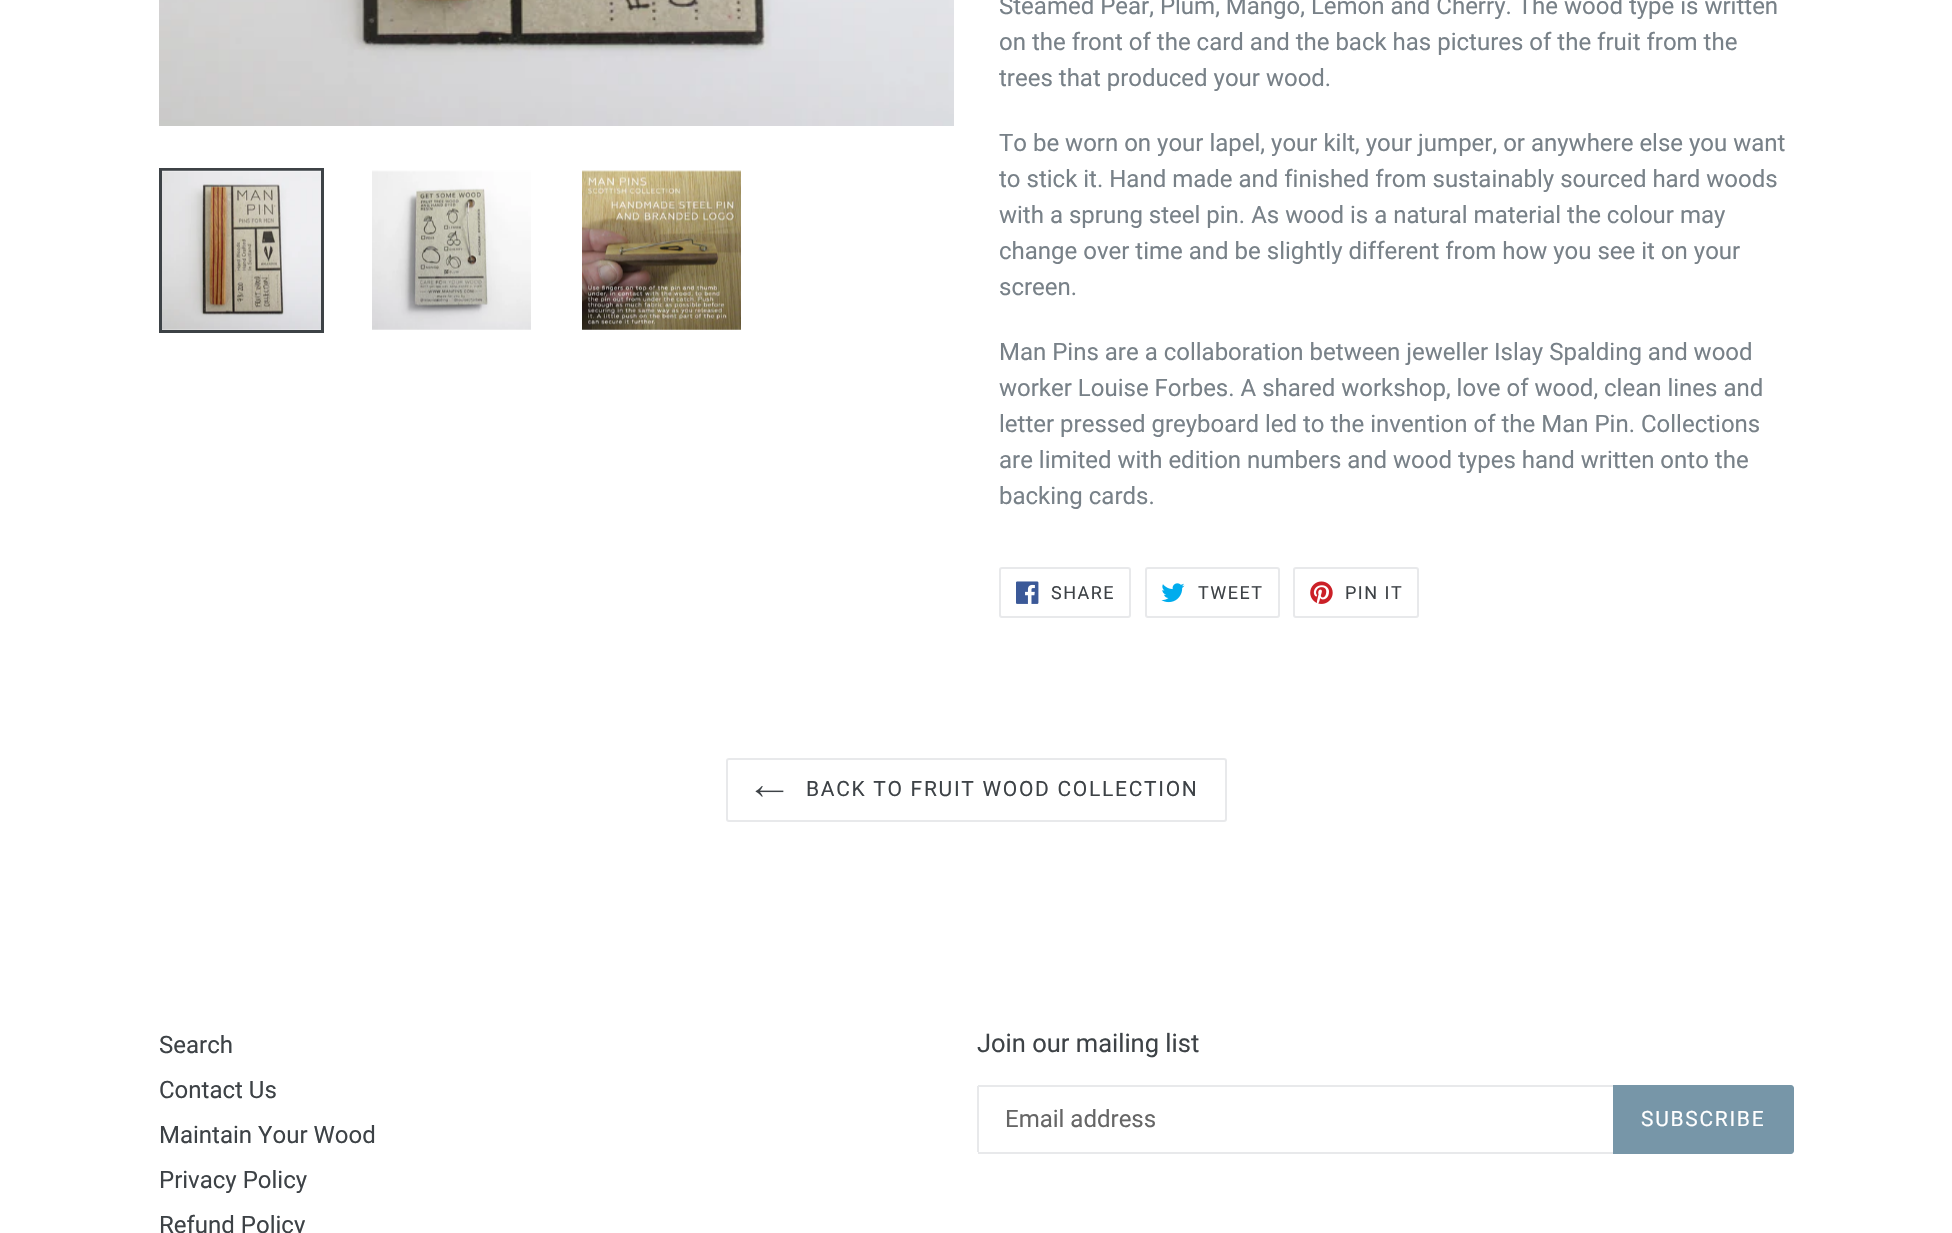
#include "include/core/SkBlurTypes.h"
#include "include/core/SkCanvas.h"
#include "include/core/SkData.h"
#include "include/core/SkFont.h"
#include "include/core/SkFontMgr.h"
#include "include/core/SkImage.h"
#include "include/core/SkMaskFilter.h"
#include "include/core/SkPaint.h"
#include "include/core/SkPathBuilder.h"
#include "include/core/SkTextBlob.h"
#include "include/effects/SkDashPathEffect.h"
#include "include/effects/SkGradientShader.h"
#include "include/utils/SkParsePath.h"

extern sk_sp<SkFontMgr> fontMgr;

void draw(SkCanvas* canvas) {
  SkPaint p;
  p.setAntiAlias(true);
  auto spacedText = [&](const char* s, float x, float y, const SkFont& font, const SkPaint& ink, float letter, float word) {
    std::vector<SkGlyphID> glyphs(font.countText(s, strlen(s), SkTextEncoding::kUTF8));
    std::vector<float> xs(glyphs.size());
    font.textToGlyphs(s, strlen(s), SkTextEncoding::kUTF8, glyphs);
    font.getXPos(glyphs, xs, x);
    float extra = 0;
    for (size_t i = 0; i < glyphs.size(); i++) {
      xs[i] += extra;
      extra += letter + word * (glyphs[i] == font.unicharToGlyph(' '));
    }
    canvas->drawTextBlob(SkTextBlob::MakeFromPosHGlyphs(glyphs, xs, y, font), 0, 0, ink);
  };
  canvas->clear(SK_ColorWHITE);
  canvas->drawImageRect(SkImages::DeferredFromEncodedData(SkData::MakeFromFileName("images/1.png")), SkRect::MakeLTRB(159, 0, 954, 126), SkSamplingOptions());
  p.setStyle(SkPaint::kStroke_Style);
  p.setStrokeWidth(3);
  p.setColor(SkColorSetRGB(61, 66, 70));
  canvas->drawRect(SkRect::MakeLTRB(160.5f, 169.5f, 322.5f, 331.5f), p);
  canvas->drawImageRect(SkImages::DeferredFromEncodedData(SkData::MakeFromFileName("images/2.png")), SkRect::MakeLTRB(162, 170, 321, 330), SkSamplingOptions());
  canvas->drawImageRect(SkImages::DeferredFromEncodedData(SkData::MakeFromFileName("images/3.png")), SkRect::MakeLTRB(372, 170, 531, 330), SkSamplingOptions());
  canvas->drawImageRect(SkImages::DeferredFromEncodedData(SkData::MakeFromFileName("images/4.png")), SkRect::MakeLTRB(582, 170, 741, 330), SkSamplingOptions());
  p.setStrokeWidth(2);
  p.setColor(SkColorSetRGB(232, 233, 235));
  canvas->drawRoundRect(SkRect::MakeLTRB(1000, 568, 1130, 617), 2, 2, p);
  canvas->drawImageRect(SkImages::DeferredFromEncodedData(SkData::MakeFromFileName("images/5.png")), SkRect::MakeLTRB(1016, 581, 1039, 604), SkSamplingOptions());
  canvas->drawRoundRect(SkRect::MakeLTRB(1146, 568, 1279, 617), 2, 2, p);
  canvas->drawImageRect(SkImages::DeferredFromEncodedData(SkData::MakeFromFileName("images/6.png")), SkRect::MakeLTRB(1161, 583, 1185, 603), SkSamplingOptions());
  canvas->drawRoundRect(SkRect::MakeLTRB(1294, 568, 1418, 617), 2, 2, p);
  canvas->drawImageRect(SkImages::DeferredFromEncodedData(SkData::MakeFromFileName("images/7.png")), SkRect::MakeLTRB(1310, 581, 1333, 604), SkSamplingOptions());
  canvas->drawRoundRect(SkRect::MakeLTRB(727, 759, 1226, 821), 2, 2, p);
  canvas->drawImageRect(SkImages::DeferredFromEncodedData(SkData::MakeFromFileName("images/8.png")), SkRect::MakeLTRB(755, 786, 784, 797), SkSamplingOptions());
  p.setStyle(SkPaint::kFill_Style);
  canvas->drawRect(SkRect::MakeLTRB(978, 1085, 1613, 1087), p);
  canvas->drawRect(SkRect::MakeLTRB(978, 1152, 1613, 1154), p);
  canvas->drawRect(SkRect::MakeLTRB(977, 1086, 979, 1152), p);
  p.setColor(SkColorSetRGB(119, 150, 168));
  canvas->drawPath(SkPathBuilder().moveTo(1613, 1085).lineTo(1791, 1085).cubicTo(1792.5f, 1085, 1794, 1086.5f, 1794, 1088).lineTo(1794, 1151).cubicTo(1794, 1152.5f, 1792.5f, 1154, 1791, 1154).lineTo(1613, 1154).close().detach(), p);
  SkFont font1(fontMgr->matchFamilyStyle("Roboto", SkFontStyle::Normal()), 24);
  font1.setSubpixel(true);
  p.setColor(SkColorSetRGB(120, 129, 136));
  canvas->drawString("Steamed Pear, Plum, Mango, Lemon and Cherry. The wood type is written", 999, 14, font1, p);
  canvas->drawString("on the front of the card and the back has pictures of the fruit from the", 999, 50, font1, p);
  canvas->drawString("trees that produced your wood.", 999, 86, font1, p);
  canvas->drawString("To be worn on your lapel, your kilt, your jumper, or anywhere else you want", 999, 151, font1, p);
  canvas->drawString("to stick it. Hand made and finished from sustainably sourced hard woods", 999, 187, font1, p);
  canvas->drawString("with a sprung steel pin. As wood is a natural material the colour may", 999, 223, font1, p);
  canvas->drawString("change over time and be slightly different from how you see it on your", 999, 259, font1, p);
  canvas->drawString("screen.", 999, 295, font1, p);
  canvas->drawString("Man Pins are a collaboration between jeweller Islay Spalding and wood", 999, 360, font1, p);
  canvas->drawString("worker Louise Forbes. A shared workshop, love of wood, clean lines and", 999, 396, font1, p);
  canvas->drawString("letter pressed greyboard led to the invention of the Man Pin. Collections", 999, 432, font1, p);
  canvas->drawString("are limited with edition numbers and wood types hand written onto the", 999, 468, font1, p);
  canvas->drawString("backing cards.", 999, 504, font1, p);
  SkFont font2(fontMgr->matchFamilyStyle("Roboto", SkFontStyle::Normal()), 18);
  font2.setSubpixel(true);
  p.setColor(SkColorSetRGB(61, 66, 70));
  spacedText("SHARE", 1051, 599, font2, p, 1.5f, 0);
  spacedText("TWEET", 1198, 599, font2, p, 1.5f, 0);
  spacedText("PIN IT", 1345, 599, font2, p, 1.5f, 0);
  SkFont font3(fontMgr->matchFamilyStyle("Roboto", SkFontStyle::Normal()), 21);
  font3.setSubpixel(true);
  spacedText("BACK TO FRUIT WOOD COLLECTION", 806, 796, font3, p, 1.7f, 0);
  canvas->drawString("Search", 159, 1053, font1, p);
  canvas->drawString("Contact Us", 159, 1098, font1, p);
  canvas->drawString("Maintain Your Wood", 159, 1143, font1, p);
  canvas->drawString("Privacy Policy", 159, 1188, font1, p);
  canvas->drawString("Refund Policy", 159, 1233, font1, p);
  SkFont font4(fontMgr->matchFamilyStyle("Roboto", SkFontStyle::Normal()), 25.5f);
  font4.setSubpixel(true);
  canvas->drawString("Join our mailing list", 977, 1052, font4, p);
  p.setColor(SkColorSetRGB(102, 102, 102));
  canvas->drawString("Email address", 1005, 1127, font1, p);
  p.setColor(SK_ColorWHITE);
  spacedText("SUBSCRIBE", 1641, 1126, font3, p, 1.7f, 0);
}
